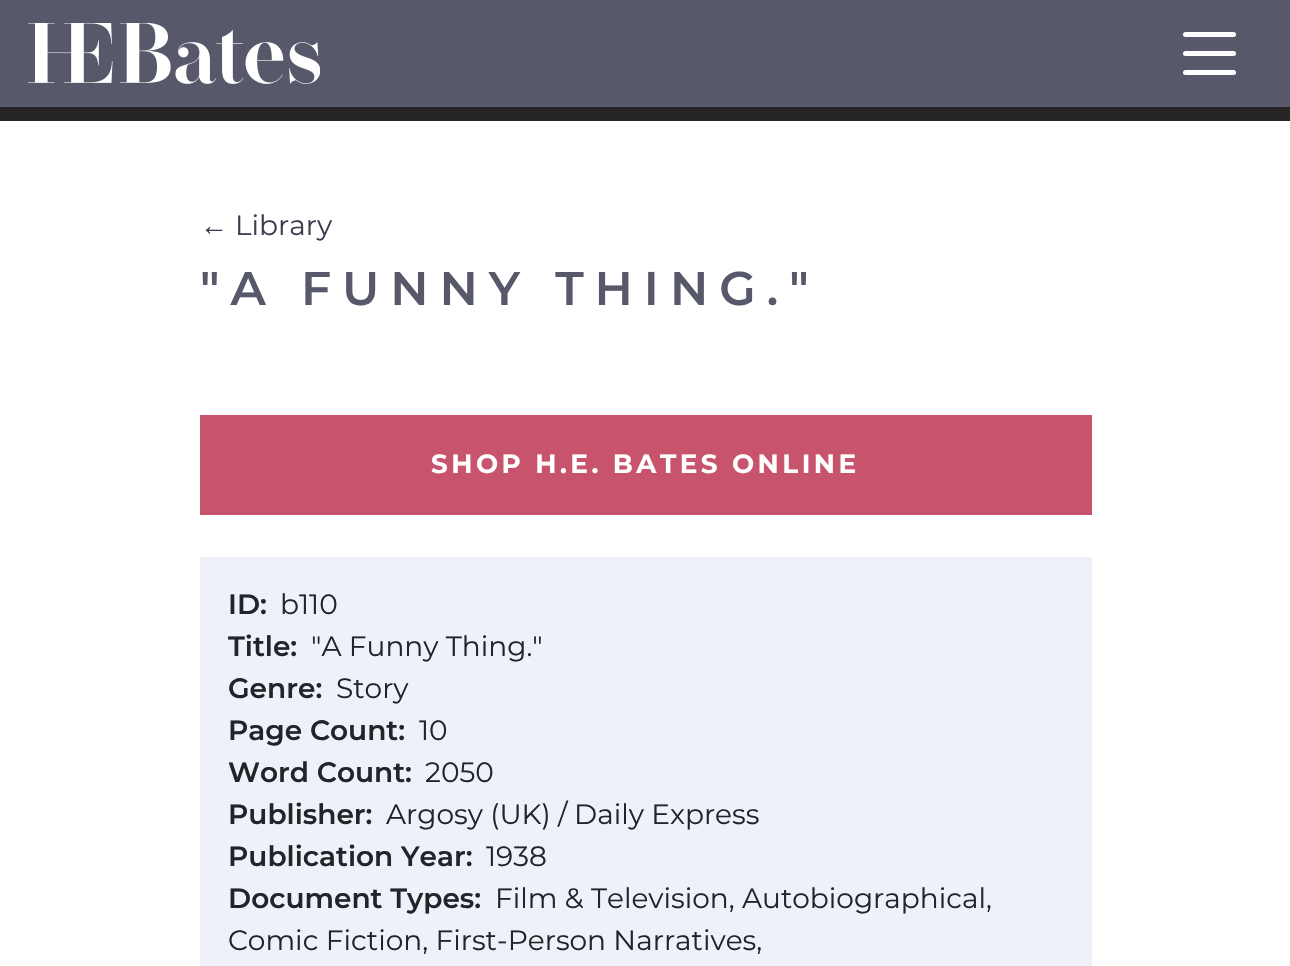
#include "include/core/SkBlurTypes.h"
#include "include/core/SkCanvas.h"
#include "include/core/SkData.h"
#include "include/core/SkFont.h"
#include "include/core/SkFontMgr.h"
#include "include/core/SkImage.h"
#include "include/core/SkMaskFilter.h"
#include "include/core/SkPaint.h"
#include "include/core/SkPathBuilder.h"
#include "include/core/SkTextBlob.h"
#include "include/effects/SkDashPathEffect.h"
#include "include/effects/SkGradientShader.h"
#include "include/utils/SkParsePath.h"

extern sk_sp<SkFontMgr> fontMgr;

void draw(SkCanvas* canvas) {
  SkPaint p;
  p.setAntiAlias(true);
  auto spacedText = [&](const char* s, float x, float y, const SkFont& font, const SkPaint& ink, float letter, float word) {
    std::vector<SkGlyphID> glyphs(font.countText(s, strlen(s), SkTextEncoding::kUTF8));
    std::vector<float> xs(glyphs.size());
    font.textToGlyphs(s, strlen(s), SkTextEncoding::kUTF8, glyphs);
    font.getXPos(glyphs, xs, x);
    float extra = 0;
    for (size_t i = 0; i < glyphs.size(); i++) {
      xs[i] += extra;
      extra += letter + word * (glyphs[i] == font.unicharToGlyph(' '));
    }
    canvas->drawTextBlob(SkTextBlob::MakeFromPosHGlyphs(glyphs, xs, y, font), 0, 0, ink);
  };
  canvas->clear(SK_ColorWHITE);
  p.setColor(SkColorSetRGB(87, 89, 107));
  canvas->drawRect(SkRect::MakeLTRB(0, 0, 1290, 107), p);
  p.setColor(SkColorSetRGB(39, 36, 37));
  canvas->drawRect(SkRect::MakeLTRB(0, 107, 1290, 121), p);
  canvas->drawImageRect(SkImages::DeferredFromEncodedData(SkData::MakeFromFileName("images/1.png")), SkRect::MakeLTRB(28, 23, 320, 84), SkSamplingOptions());
  p.setColor(SK_ColorWHITE);
  canvas->drawRoundRect(SkRect::MakeLTRB(1183, 32, 1236, 37), 2.5f, 2.5f, p);
  canvas->drawRoundRect(SkRect::MakeLTRB(1183, 51, 1236, 56), 2.5f, 2.5f, p);
  canvas->drawRoundRect(SkRect::MakeLTRB(1183, 70, 1236, 75), 2.5f, 2.5f, p);
  p.setColor(SkColorSetRGB(199, 84, 108));
  canvas->drawRect(SkRect::MakeLTRB(200, 415, 1092, 515), p);
  p.setColor(SkColorSetRGB(238, 242, 248));
  canvas->drawRect(SkRect::MakeLTRB(200, 557, 1092, 966), p);
  SkFont font1(fontMgr->matchFamilyStyle("Liberation Sans", SkFontStyle::Normal()), 28);
  font1.setSubpixel(true);
  p.setColor(SkColorSetRGB(61, 62, 76));
  canvas->drawString("←", 200, 235, font1, p);
  SkFont font2(fontMgr->matchFamilyStyle("Montserrat", SkFontStyle::Normal()), 28);
  font2.setSubpixel(true);
  canvas->drawString("Library", 235, 235, font2, p);
  SkFont font3(fontMgr->matchFamilyStyle("Montserrat", SkFontStyle(600, SkFontStyle::kNormal_Width, SkFontStyle::kUpright_Slant)), 47.25f);
  font3.setSubpixel(true);
  p.setColor(SkColorSetRGB(87, 89, 107));
  spacedText("\"A FUNNY THING.\"", 200, 305, font3, p, 11, 0);
  SkFont font4(fontMgr->matchFamilyStyle("Montserrat", SkFontStyle::Bold()), 26.25f);
  font4.setSubpixel(true);
  p.setColor(SK_ColorWHITE);
  spacedText("SHOP H.E. BATES ONLINE", 431, 473, font4, p, 3.5f, 0);
  SkFont font5(fontMgr->matchFamilyStyle("Montserrat", SkFontStyle(600, SkFontStyle::kNormal_Width, SkFontStyle::kUpright_Slant)), 28);
  font5.setSubpixel(true);
  p.setColor(SkColorSetRGB(33, 37, 41));
  canvas->drawString("ID:", 228, 614, font5, p);
  canvas->drawString("b110", 280, 614, font2, p);
  canvas->drawString("Title:", 228, 656, font5, p);
  canvas->drawString("\"A Funny Thing.\"", 311, 656, font2, p);
  canvas->drawString("Genre:", 228, 698, font5, p);
  canvas->drawString("Story", 336, 698, font2, p);
  canvas->drawString("Page Count:", 228, 740, font5, p);
  canvas->drawString("10", 419, 740, font2, p);
  canvas->drawString("Word Count:", 228, 782, font5, p);
  canvas->drawString("2050", 425, 782, font2, p);
  canvas->drawString("Publisher:", 228, 824, font5, p);
  canvas->drawString("Argosy (UK)", 386, 824, font2, p);
  canvas->drawString("/", 558, 824, font2, p);
  canvas->drawString("Daily Express", 574, 824, font2, p);
  canvas->drawString("Publication Year:", 228, 866, font5, p);
  canvas->drawString("1938", 486, 866, font2, p);
  canvas->drawString("Document Types:", 228, 908, font5, p);
  canvas->drawString("Film & Television, Autobiographical,", 495, 908, font2, p);
  canvas->drawString("Comic Fiction, First-Person Narratives,", 228, 950, font2, p);
}
